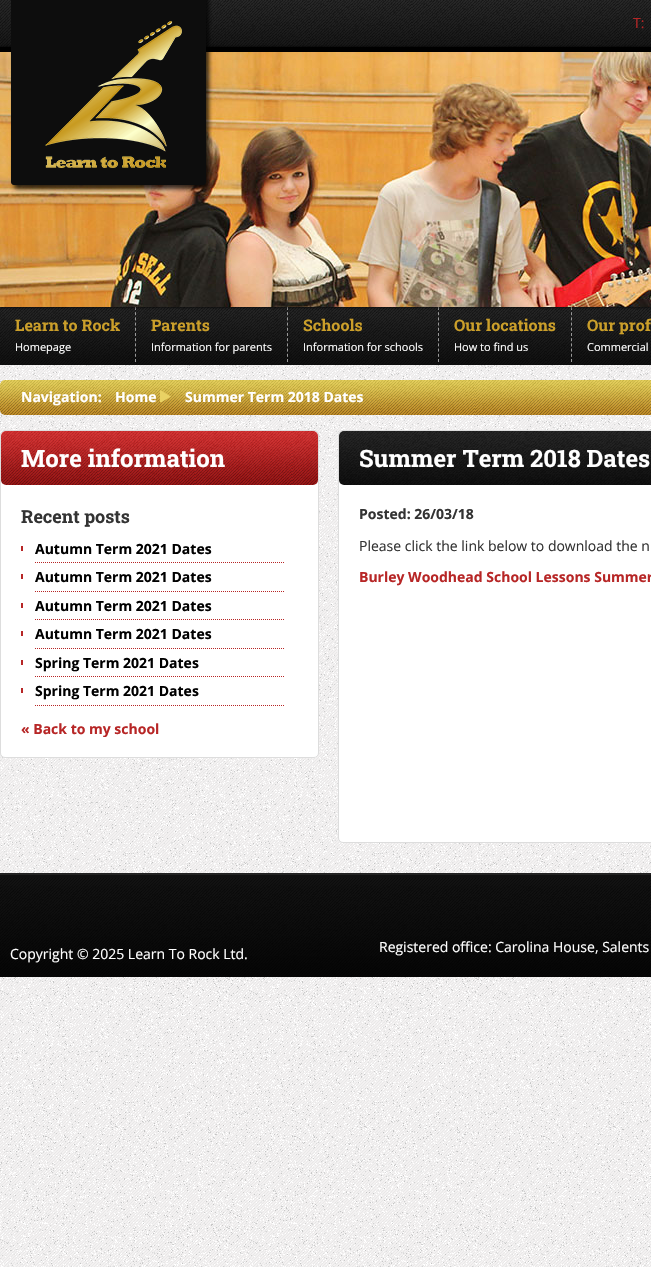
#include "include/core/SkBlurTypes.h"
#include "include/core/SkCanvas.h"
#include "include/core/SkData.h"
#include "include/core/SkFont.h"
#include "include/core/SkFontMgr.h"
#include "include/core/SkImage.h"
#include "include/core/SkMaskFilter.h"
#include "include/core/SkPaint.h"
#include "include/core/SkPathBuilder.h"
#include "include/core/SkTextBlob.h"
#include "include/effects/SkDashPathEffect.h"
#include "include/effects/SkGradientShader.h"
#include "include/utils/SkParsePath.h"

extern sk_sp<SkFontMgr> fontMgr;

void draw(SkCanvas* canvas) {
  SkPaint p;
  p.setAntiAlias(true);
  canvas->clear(SK_ColorWHITE);
  canvas->drawImageRect(SkImages::DeferredFromEncodedData(SkData::MakeFromFileName("images/1.png")), SkRect::MakeLTRB(0, 365, 651, 1267), SkSamplingOptions());
  canvas->drawImageRect(SkImages::DeferredFromEncodedData(SkData::MakeFromFileName("images/3.png")), SkRect::MakeLTRB(0, 0, 651, 47), SkSamplingOptions());
  canvas->drawImageRect(SkImages::DeferredFromEncodedData(SkData::MakeFromFileName("images/5.png")), SkRect::MakeLTRB(0, 307, 651, 365), SkSamplingOptions());
  p.setStyle(SkPaint::kStroke_Style);
  p.setStrokeWidth(1);
  p.setColor(SkColorSetRGB(153, 153, 153));
  p.setPathEffect(SkDashPathEffect::Make({{3, 2.2f}}, 0));
  canvas->drawPath(SkPathBuilder().moveTo(135.5f, 307).lineTo(135.5f, 362).detach(), p);
  p.setPathEffect(nullptr);
  p.setPathEffect(SkDashPathEffect::Make({{3, 2.2f}}, 0));
  canvas->drawPath(SkPathBuilder().moveTo(287.5f, 307).lineTo(287.5f, 362).detach(), p);
  p.setPathEffect(nullptr);
  p.setPathEffect(SkDashPathEffect::Make({{3, 2.2f}}, 0));
  canvas->drawPath(SkPathBuilder().moveTo(438.5f, 307).lineTo(438.5f, 362).detach(), p);
  p.setPathEffect(nullptr);
  p.setPathEffect(SkDashPathEffect::Make({{3, 2.2f}}, 0));
  canvas->drawPath(SkPathBuilder().moveTo(571.5f, 307).lineTo(571.5f, 362).detach(), p);
  p.setPathEffect(nullptr);
  p.setStyle(SkPaint::kFill_Style);
  p.setColor(SK_ColorBLACK);
  p.setMaskFilter(SkMaskFilter::MakeBlur(kNormal_SkBlurStyle, 1.5f));
  canvas->drawRect(SkRect::MakeLTRB(0, 47, 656, 307), p);
  p.setMaskFilter(nullptr);
  canvas->drawRect(SkRect::MakeLTRB(0, 47, 651, 52), p);
  canvas->drawImageRect(SkImages::DeferredFromEncodedData(SkData::MakeFromFileName("images/4.png")), SkRect::MakeLTRB(0, 52, 651, 307), SkSamplingOptions());
  canvas->drawImageRect(SkImages::DeferredFromEncodedData(SkData::MakeFromFileName("images/2.png")), SkRect::MakeLTRB(10, 0, 213, 193), SkSamplingOptions());
  canvas->drawImageRect(SkImages::DeferredFromEncodedData(SkData::MakeFromFileName("images/6.png")), SkRect::MakeLTRB(0, 380, 651, 415), SkSamplingOptions());
  canvas->drawImageRect(SkImages::DeferredFromEncodedData(SkData::MakeFromFileName("images/7.png")), SkRect::MakeLTRB(160, 390, 171, 402), SkSamplingOptions());
  p.setColor(SK_ColorWHITE);
  canvas->drawRoundRect(SkRect::MakeLTRB(0.5f, 430.5f, 318.5f, 757.5f), 4.5f, 4.5f, p);
  p.setStyle(SkPaint::kStroke_Style);
  p.setColor(SkColorSetRGB(221, 221, 221));
  canvas->drawRoundRect(SkRect::MakeLTRB(0.5f, 430.5f, 318.5f, 757.5f), 4.5f, 4.5f, p);
  canvas->drawImageRect(SkImages::DeferredFromEncodedData(SkData::MakeFromFileName("images/8.png")), SkRect::MakeLTRB(1, 431, 318, 485), SkSamplingOptions());
  p.setColor(SkColorSetRGB(183, 38, 38));
  p.setPathEffect(SkDashPathEffect::Make({{1, 1}}, 0));
  canvas->drawPath(SkPathBuilder().moveTo(35, 562.5f).lineTo(284, 562.5f).detach(), p);
  p.setPathEffect(nullptr);
  p.setStyle(SkPaint::kFill_Style);
  canvas->drawRect(SkRect::MakeLTRB(21, 546, 23, 551), p);
  p.setStyle(SkPaint::kStroke_Style);
  p.setPathEffect(SkDashPathEffect::Make({{1, 1}}, 0));
  canvas->drawPath(SkPathBuilder().moveTo(35, 591.5f).lineTo(284, 591.5f).detach(), p);
  p.setPathEffect(nullptr);
  p.setStyle(SkPaint::kFill_Style);
  canvas->drawRect(SkRect::MakeLTRB(21, 574, 23, 579), p);
  p.setStyle(SkPaint::kStroke_Style);
  p.setPathEffect(SkDashPathEffect::Make({{1, 1}}, 0));
  canvas->drawPath(SkPathBuilder().moveTo(35, 619.5f).lineTo(284, 619.5f).detach(), p);
  p.setPathEffect(nullptr);
  p.setStyle(SkPaint::kFill_Style);
  canvas->drawRect(SkRect::MakeLTRB(21, 603, 23, 608), p);
  p.setStyle(SkPaint::kStroke_Style);
  p.setPathEffect(SkDashPathEffect::Make({{1, 1}}, 0));
  canvas->drawPath(SkPathBuilder().moveTo(35, 648.5f).lineTo(284, 648.5f).detach(), p);
  p.setPathEffect(nullptr);
  p.setStyle(SkPaint::kFill_Style);
  canvas->drawRect(SkRect::MakeLTRB(21, 631, 23, 636), p);
  p.setStyle(SkPaint::kStroke_Style);
  p.setPathEffect(SkDashPathEffect::Make({{1, 1}}, 0));
  canvas->drawPath(SkPathBuilder().moveTo(35, 676.5f).lineTo(284, 676.5f).detach(), p);
  p.setPathEffect(nullptr);
  p.setStyle(SkPaint::kFill_Style);
  canvas->drawRect(SkRect::MakeLTRB(21, 660, 23, 665), p);
  p.setStyle(SkPaint::kStroke_Style);
  p.setPathEffect(SkDashPathEffect::Make({{1, 1}}, 0));
  canvas->drawPath(SkPathBuilder().moveTo(35, 705.5f).lineTo(284, 705.5f).detach(), p);
  p.setPathEffect(nullptr);
  p.setStyle(SkPaint::kFill_Style);
  canvas->drawRect(SkRect::MakeLTRB(21, 688, 23, 693), p);
  p.setColor(SK_ColorWHITE);
  canvas->drawRoundRect(SkRect::MakeLTRB(338.5f, 430.5f, 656.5f, 842.5f), 4.5f, 4.5f, p);
  p.setStyle(SkPaint::kStroke_Style);
  p.setColor(SkColorSetRGB(221, 221, 221));
  canvas->drawRoundRect(SkRect::MakeLTRB(338.5f, 430.5f, 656.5f, 842.5f), 4.5f, 4.5f, p);
  canvas->drawImageRect(SkImages::DeferredFromEncodedData(SkData::MakeFromFileName("images/9.png")), SkRect::MakeLTRB(339, 431, 651, 485), SkSamplingOptions());
  canvas->drawImageRect(SkImages::DeferredFromEncodedData(SkData::MakeFromFileName("images/10.png")), SkRect::MakeLTRB(0, 875, 651, 977), SkSamplingOptions());
  p.setStyle(SkPaint::kFill_Style);
  p.setColor(SkColorSetRGB(34, 34, 34));
  canvas->drawRect(SkRect::MakeLTRB(0, 873, 651, 875), p);
  SkFont font1(fontMgr->matchFamilyStyle("Open Sans", SkFontStyle::Normal()), 14);
  font1.setSubpixel(true);
  p.setColor(SkColorSetRGB(183, 38, 38));
  canvas->drawString("T:", 633, 28, font1, p);
  SkFont font2(fontMgr->matchFamilyStyle("Roboto Slab", SkFontStyle::Bold()), 16);
  font2.setSubpixel(true);
  p.setColor(SkColorSetRGB(203, 159, 42));
  canvas->drawString("Learn to Rock", 15, 331, font2, p);
  SkFont font3(fontMgr->matchFamilyStyle("Open Sans", SkFontStyle::Normal()), 11);
  font3.setSubpixel(true);
  p.setColor(SK_ColorWHITE);
  canvas->drawString("Homepage", 15, 351, font3, p);
  p.setColor(SkColorSetRGB(203, 159, 42));
  canvas->drawString("Parents", 151, 331, font2, p);
  p.setColor(SK_ColorWHITE);
  canvas->drawString("Information for parents", 151, 351, font3, p);
  p.setColor(SkColorSetRGB(203, 159, 42));
  canvas->drawString("Schools", 303, 331, font2, p);
  p.setColor(SK_ColorWHITE);
  canvas->drawString("Information for schools", 303, 351, font3, p);
  p.setColor(SkColorSetRGB(203, 159, 42));
  canvas->drawString("Our locations", 454, 331, font2, p);
  p.setColor(SK_ColorWHITE);
  canvas->drawString("How to find us", 454, 351, font3, p);
  p.setColor(SkColorSetRGB(203, 159, 42));
  canvas->drawString("Our prof", 587, 331, font2, p);
  p.setColor(SK_ColorWHITE);
  canvas->drawString("Commercial", 587, 351, font3, p);
  SkFont font4(fontMgr->matchFamilyStyle("Open Sans", SkFontStyle::Bold()), 14);
  font4.setSubpixel(true);
  canvas->drawString("Navigation:", 21, 402, font4, p);
  canvas->drawString("Home", 115, 402, font4, p);
  canvas->drawString("Summer Term 2018 Dates", 185, 402, font4, p);
  SkFont font5(fontMgr->matchFamilyStyle("Roboto Slab", SkFontStyle::Bold()), 24);
  font5.setSubpixel(true);
  canvas->drawString("More information", 21, 467, font5, p);
  SkFont font6(fontMgr->matchFamilyStyle("Roboto Slab", SkFontStyle::Bold()), 18);
  font6.setSubpixel(true);
  p.setColor(SkColorSetRGB(51, 51, 51));
  canvas->drawString("Recent posts", 21, 523, font6, p);
  p.setColor(SK_ColorBLACK);
  canvas->drawString("Autumn Term 2021 Dates", 35, 554, font4, p);
  canvas->drawString("Autumn Term 2021 Dates", 35, 582, font4, p);
  canvas->drawString("Autumn Term 2021 Dates", 35, 611, font4, p);
  canvas->drawString("Autumn Term 2021 Dates", 35, 639, font4, p);
  canvas->drawString("Spring Term 2021 Dates", 35, 668, font4, p);
  canvas->drawString("Spring Term 2021 Dates", 35, 696, font4, p);
  canvas->save();
  canvas->clipRect(SkRect::MakeLTRB(21, 505, 298, 737));
  p.setColor(SkColorSetRGB(183, 38, 38));
  canvas->drawString("« Back to my school", 21, 734, font4, p);
  canvas->restore();
  p.setColor(SK_ColorWHITE);
  canvas->drawString("Summer Term 2018 Dates", 359, 467, font5, p);
  p.setColor(SkColorSetRGB(51, 51, 51));
  canvas->drawString("Posted: 26/03/18", 359, 519, font4, p);
  canvas->drawString("Please click the link below to download the n", 359, 551, font1, p);
  p.setColor(SkColorSetRGB(183, 38, 38));
  canvas->drawString("Burley Woodhead School Lessons Summer", 359, 582, font4, p);
  p.setColor(SK_ColorWHITE);
  canvas->drawString("Copyright © 2025 Learn To Rock Ltd.", 10, 959, font1, p);
  canvas->drawString("Registered office: Carolina House, Salents", 379, 952, font1, p);
}
